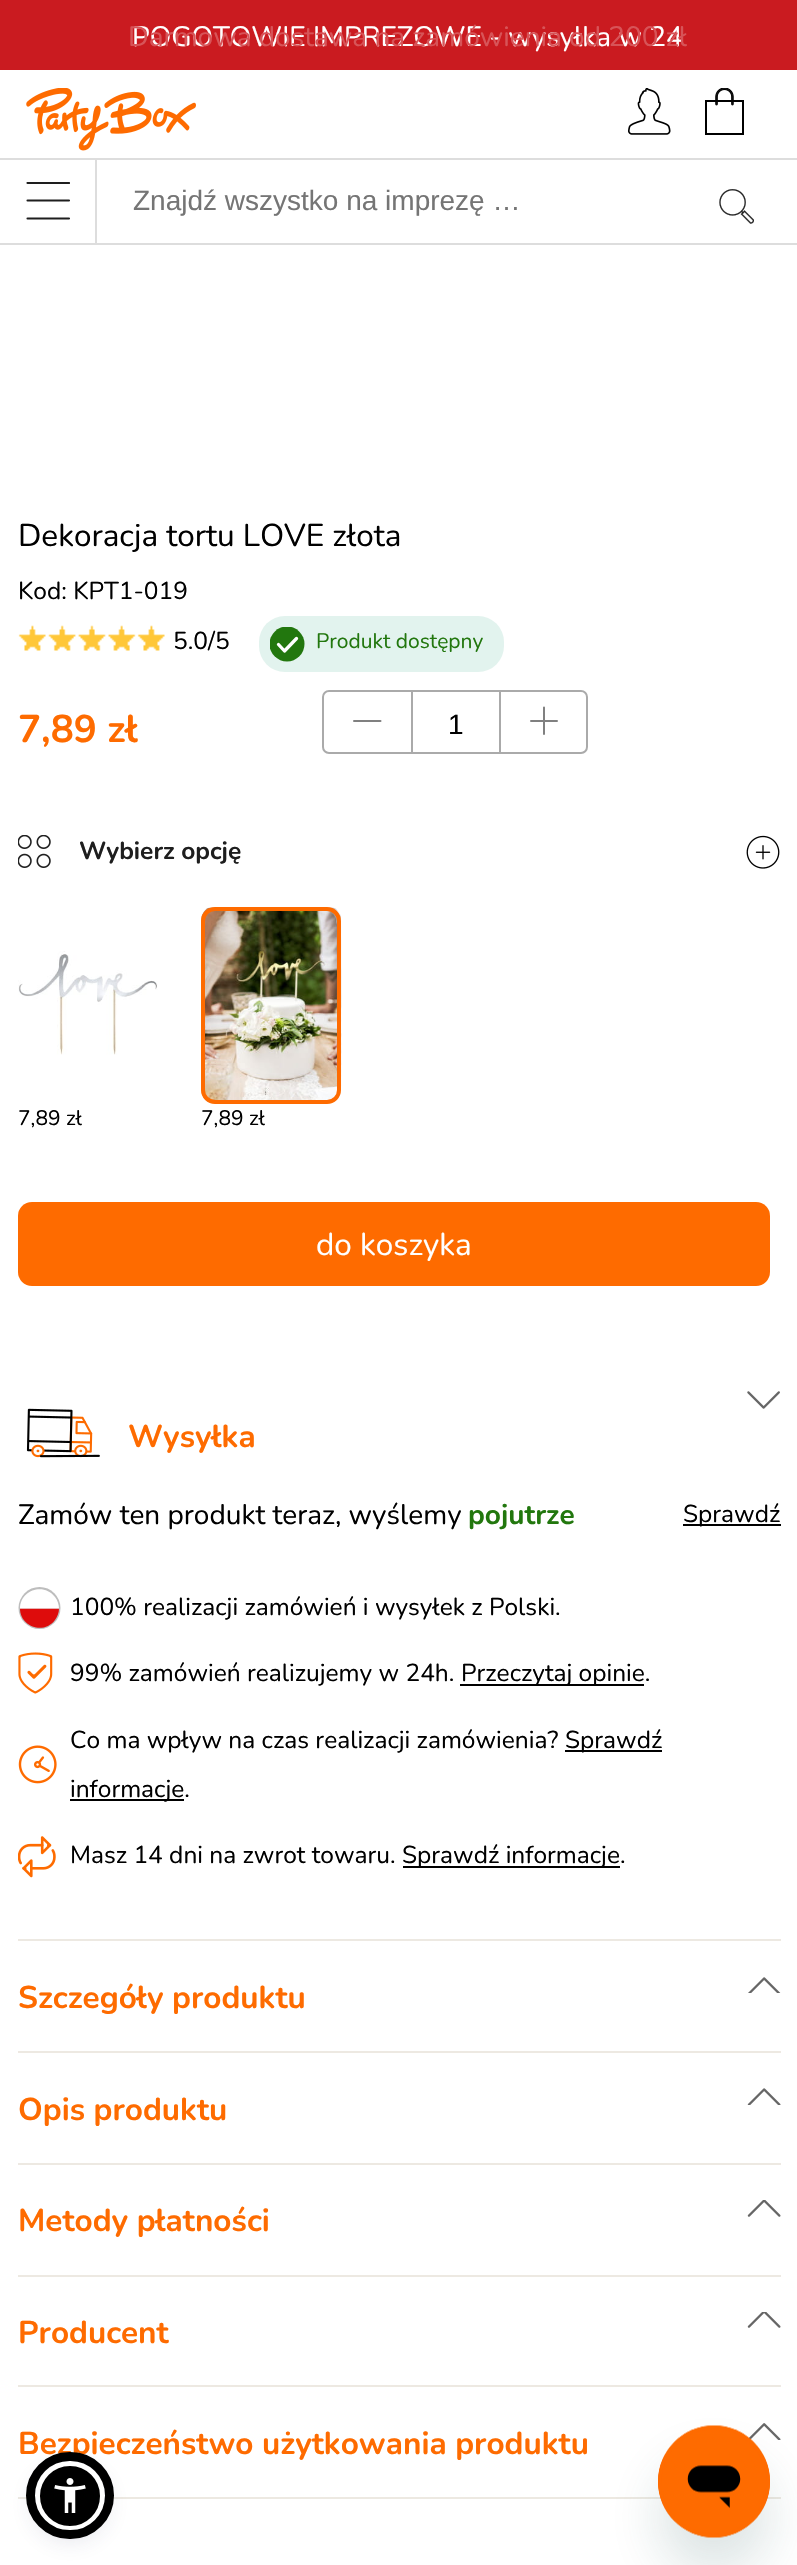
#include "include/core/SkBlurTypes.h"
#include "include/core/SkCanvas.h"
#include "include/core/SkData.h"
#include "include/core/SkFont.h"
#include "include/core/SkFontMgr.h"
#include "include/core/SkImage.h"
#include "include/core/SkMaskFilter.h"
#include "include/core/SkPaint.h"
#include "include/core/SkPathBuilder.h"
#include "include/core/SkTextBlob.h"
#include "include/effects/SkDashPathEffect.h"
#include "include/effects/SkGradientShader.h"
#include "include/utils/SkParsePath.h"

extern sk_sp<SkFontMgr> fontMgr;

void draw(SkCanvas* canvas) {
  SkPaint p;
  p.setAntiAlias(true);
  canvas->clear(SK_ColorWHITE);
  p.setColor(SkColorSetRGB(202, 27, 32));
  canvas->drawRect(SkRect::MakeLTRB(0, 0, 797, 70), p);
  canvas->drawImageRect(SkImages::DeferredFromEncodedData(SkData::MakeFromFileName("images/1.png")), SkRect::MakeLTRB(26, 88, 196, 151), SkSamplingOptions());
  canvas->drawImageRect(SkImages::DeferredFromEncodedData(SkData::MakeFromFileName("images/2.png")), SkRect::MakeLTRB(628, 88, 671, 135), SkSamplingOptions());
  canvas->drawImageRect(SkImages::DeferredFromEncodedData(SkData::MakeFromFileName("images/3.png")), SkRect::MakeLTRB(705, 88, 744, 135), SkSamplingOptions());
  p.setColor(SkColorSetRGB(221, 221, 221));
  canvas->drawRect(SkRect::MakeLTRB(0, 158, 96, 160), p);
  canvas->drawRect(SkRect::MakeLTRB(95, 158, 97, 245), p);
  canvas->drawRect(SkRect::MakeLTRB(0, 243, 797, 245), p);
  canvas->save();
  canvas->clipRect(SkRect::MakeLTRB(26, 182, 70, 221));
  p.setStyle(SkPaint::kStroke_Style);
  p.setStrokeWidth(2.1f);
  p.setStrokeCap(SkPaint::kRound_Cap);
  p.setColor(SkColorSetRGB(30, 30, 30));
  canvas->drawPath(SkPathBuilder().moveTo(27.5f, 183).lineTo(69, 183).detach(), p);
  canvas->restore();
  canvas->drawPath(SkPathBuilder().moveTo(27.5f, 200.5f).lineTo(69, 200.5f).moveTo(27.5f, 218.5f).lineTo(69, 218.5f).detach(), p);
  p.setStyle(SkPaint::kFill_Style);
  p.setColor(SkColorSetRGB(221, 221, 221));
  canvas->drawRect(SkRect::MakeLTRB(96, 158, 797, 160), p);
  canvas->drawImageRect(SkImages::DeferredFromEncodedData(SkData::MakeFromFileName("images/4.png")), SkRect::MakeLTRB(719, 189, 754, 224), SkSamplingOptions());
  canvas->drawImageRect(SkImages::DeferredFromEncodedData(SkData::MakeFromFileName("images/5.png")), SkRect::MakeLTRB(18, 625, 46, 651), SkSamplingOptions());
  canvas->drawImageRect(SkImages::DeferredFromEncodedData(SkData::MakeFromFileName("images/6.png")), SkRect::MakeLTRB(48, 625, 76, 651), SkSamplingOptions());
  canvas->drawImageRect(SkImages::DeferredFromEncodedData(SkData::MakeFromFileName("images/7.png")), SkRect::MakeLTRB(78, 625, 106, 651), SkSamplingOptions());
  canvas->drawImageRect(SkImages::DeferredFromEncodedData(SkData::MakeFromFileName("images/8.png")), SkRect::MakeLTRB(108, 625, 136, 651), SkSamplingOptions());
  canvas->drawImageRect(SkImages::DeferredFromEncodedData(SkData::MakeFromFileName("images/5.png")), SkRect::MakeLTRB(137, 625, 165, 651), SkSamplingOptions());
  p.setColor(SkColorSetRGB(226, 243, 238));
  canvas->drawRoundRect(SkRect::MakeLTRB(259, 616, 504, 672), 26, 26, p);
  canvas->save();
  canvas->clipRect(SkRect::MakeLTRB(270, 627, 305, 662));
  p.setColor(SkColorSetRGB(34, 119, 14));
  canvas->drawCircle(287, 644, 17.5f, p);
  canvas->restore();
  p.setStyle(SkPaint::kStroke_Style);
  p.setStrokeWidth(3.3f);
  p.setStrokeJoin(SkPaint::kRound_Join);
  p.setColor(SK_ColorWHITE);
  canvas->drawPath(SkPathBuilder().moveTo(278.5f, 644.5f).lineTo(284.5f, 651).lineTo(296.5f, 638.5f).detach(), p);
  p.setStrokeWidth(2);
  p.setStrokeCap(SkPaint::kButt_Cap);
  p.setStrokeJoin(SkPaint::kMiter_Join);
  p.setColor(SkColorSetRGB(170, 170, 170));
  canvas->drawRoundRect(SkRect::MakeLTRB(323, 691, 587, 753), 6, 6, p);
  p.setStrokeCap(SkPaint::kRound_Cap);
  p.setStrokeJoin(SkPaint::kRound_Join);
  p.setColor(SkColorSetRGB(128, 128, 128));
  canvas->drawPath(SkPathBuilder().moveTo(354, 721).lineTo(380.5f, 721).detach(), p);
  p.setStyle(SkPaint::kFill_Style);
  p.setColor(SkColorSetRGB(170, 170, 170));
  canvas->drawRect(SkRect::MakeLTRB(499, 691, 501, 753), p);
  canvas->drawRect(SkRect::MakeLTRB(411, 691, 413, 753), p);
  p.setStyle(SkPaint::kStroke_Style);
  p.setColor(SkColorSetRGB(128, 128, 128));
  canvas->drawPath(SkPathBuilder().moveTo(531, 721).lineTo(557, 721).moveTo(544, 707.5f).lineTo(544, 734).detach(), p);
  canvas->drawImageRect(SkImages::DeferredFromEncodedData(SkData::MakeFromFileName("images/9.png")), SkRect::MakeLTRB(18, 835, 51, 868), SkSamplingOptions());
  canvas->drawImageRect(SkImages::DeferredFromEncodedData(SkData::MakeFromFileName("images/10.png")), SkRect::MakeLTRB(746, 835, 780, 869), SkSamplingOptions());
  canvas->drawImageRect(SkImages::DeferredFromEncodedData(SkData::MakeFromFileName("images/11.png")), SkRect::MakeLTRB(18, 951, 158, 1055), SkSamplingOptions());
  canvas->drawImageRect(SkImages::DeferredFromEncodedData(SkData::MakeFromFileName("images/12.png")), SkRect::MakeLTRB(201, 907, 342, 1102), SkSamplingOptions());
  p.setStrokeWidth(4);
  p.setStrokeCap(SkPaint::kButt_Cap);
  p.setStrokeJoin(SkPaint::kMiter_Join);
  p.setColor(SkColorSetRGB(254, 107, 0));
  canvas->drawRoundRect(SkRect::MakeLTRB(203, 909, 339, 1102), 12, 12, p);
  p.setStyle(SkPaint::kFill_Style);
  canvas->drawRoundRect(SkRect::MakeLTRB(18, 1202, 770, 1286), 14, 14, p);
  p.setColor(SkColorSetRGB(237, 233, 226));
  canvas->drawRect(SkRect::MakeLTRB(18, 1939, 781, 1941), p);
  canvas->drawImageRect(SkImages::DeferredFromEncodedData(SkData::MakeFromFileName("images/13.png")), SkRect::MakeLTRB(747, 1391, 780, 1409), SkSamplingOptions());
  canvas->drawImageRect(SkImages::DeferredFromEncodedData(SkData::MakeFromFileName("images/14.png")), SkRect::MakeLTRB(26, 1408, 100, 1458), SkSamplingOptions());
  p.setColor(SK_ColorBLACK);
  canvas->drawRect(SkRect::MakeLTRB(683, 1524, 781, 1526), p);
  p.setColor(SkColorSetRGB(189, 189, 189));
  canvas->drawCircle(39.5f, 1608, 21, p);
  p.setColor(SkColorSetRGB(222, 12, 12));
  canvas->drawPath(SkPathBuilder().moveTo(59, 1608.5f).cubicTo(59, 1612.5f, 57.5f, 1616.5f, 55, 1620).cubicTo(44, 1635, 20, 1627, 20, 1608.5f).close().detach(), p);
  p.setColor(SK_ColorWHITE);
  canvas->drawPath(SkPathBuilder().moveTo(20, 1608.5f).cubicTo(20, 1590, 44, 1582, 55, 1597).cubicTo(57.5f, 1600, 59, 1604.5f, 59, 1608.5f).close().detach(), p);
  canvas->drawImageRect(SkImages::DeferredFromEncodedData(SkData::MakeFromFileName("images/15.png")), SkRect::MakeLTRB(18, 1652, 53, 1694), SkSamplingOptions());
  p.setColor(SK_ColorBLACK);
  canvas->drawRect(SkRect::MakeLTRB(460, 1684, 644, 1686), p);
  canvas->drawImageRect(SkImages::DeferredFromEncodedData(SkData::MakeFromFileName("images/16.png")), SkRect::MakeLTRB(18, 1745, 57, 1784), SkSamplingOptions());
  canvas->drawRect(SkRect::MakeLTRB(565, 1750, 662, 1752), p);
  canvas->drawRect(SkRect::MakeLTRB(70, 1799, 184, 1801), p);
  canvas->drawImageRect(SkImages::DeferredFromEncodedData(SkData::MakeFromFileName("images/17.png")), SkRect::MakeLTRB(18, 1836, 56, 1878), SkSamplingOptions());
  canvas->drawRect(SkRect::MakeLTRB(403, 1866, 620, 1868), p);
  p.setColor(SkColorSetRGB(237, 233, 226));
  canvas->drawRect(SkRect::MakeLTRB(18, 2051, 781, 2053), p);
  canvas->drawImageRect(SkImages::DeferredFromEncodedData(SkData::MakeFromFileName("images/18.png")), SkRect::MakeLTRB(748, 1977, 781, 1993), SkSamplingOptions());
  canvas->drawRect(SkRect::MakeLTRB(18, 2163, 781, 2165), p);
  canvas->drawImageRect(SkImages::DeferredFromEncodedData(SkData::MakeFromFileName("images/19.png")), SkRect::MakeLTRB(747, 2088, 781, 2105), SkSamplingOptions());
  canvas->drawRect(SkRect::MakeLTRB(18, 2275, 781, 2277), p);
  canvas->drawImageRect(SkImages::DeferredFromEncodedData(SkData::MakeFromFileName("images/20.png")), SkRect::MakeLTRB(747, 2200, 781, 2217), SkSamplingOptions());
  canvas->drawRect(SkRect::MakeLTRB(18, 2385, 781, 2387), p);
  canvas->drawImageRect(SkImages::DeferredFromEncodedData(SkData::MakeFromFileName("images/21.png")), SkRect::MakeLTRB(747, 2312, 781, 2328), SkSamplingOptions());
  canvas->drawRect(SkRect::MakeLTRB(18, 2497, 781, 2499), p);
  canvas->drawImageRect(SkImages::DeferredFromEncodedData(SkData::MakeFromFileName("images/22.png")), SkRect::MakeLTRB(748, 2423, 781, 2440), SkSamplingOptions());
  p.setColor(SkColorSetARGB(51, 93, 100, 148));
  p.setMaskFilter(SkMaskFilter::MakeBlur(kNormal_SkBlurStyle, 3.5f));
  canvas->drawRoundRect(SkRect::MakeLTRB(35, 2464, 105, 2534), 35, 35, p);
  p.setMaskFilter(nullptr);
  p.setColor(SkColorSetARGB(38, 37, 44, 97));
  p.setMaskFilter(SkMaskFilter::MakeBlur(kNormal_SkBlurStyle, 13));
  canvas->drawRoundRect(SkRect::MakeLTRB(35, 2469, 105, 2539), 35, 35, p);
  p.setMaskFilter(nullptr);
  p.setColor(SK_ColorBLACK);
  canvas->drawCircle(70, 2496, 32.5f, p);
  p.setStyle(SkPaint::kStroke_Style);
  p.setStrokeWidth(5);
  p.setColor(SK_ColorWHITE);
  canvas->drawCircle(70, 2496, 32.5f, p);
  p.setStyle(SkPaint::kFill_Style);
  p.setColor(SkColorSetARGB(38, 23, 73, 77));
  p.setMaskFilter(SkMaskFilter::MakeBlur(kNormal_SkBlurStyle, 26));
  canvas->drawRoundRect(SkRect::MakeLTRB(658, 2461, 770, 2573), 56, 56, p);
  p.setMaskFilter(nullptr);
  canvas->drawImageRect(SkImages::DeferredFromEncodedData(SkData::MakeFromFileName("images/24.png")), SkRect::MakeLTRB(658, 2425, 770, 2538), SkSamplingOptions());
  SkFont font1(fontMgr->matchFamilyStyle("Nunito", SkFontStyle::Normal()), 28);
  font1.setSubpixel(true);
  p.setColor(SK_ColorWHITE);
  canvas->drawString("POGOTOWIE IMPREZOWE - wysyłka w 24", 132, 46, font1, p);
  p.setColor(SkColorSetRGB(215, 84, 88));
  canvas->drawString("Darmowa dostawa na zamówienia od 200 zł", 128, 46, font1, p);
  SkFont font2(fontMgr->matchFamilyStyle("Liberation Sans", SkFontStyle::Normal()), 28);
  font2.setSubpixel(true);
  p.setColor(SkColorSetRGB(117, 117, 117));
  canvas->drawString("Znajdź wszystko na imprezę …", 133, 210, font2, p);
  SkFont font3(fontMgr->matchFamilyStyle("Nunito", SkFontStyle::Normal()), 31.5f);
  font3.setSubpixel(true);
  p.setColor(SK_ColorBLACK);
  canvas->drawString("Dekoracja tortu LOVE złota", 18, 546, font3, p);
  SkFont font4(fontMgr->matchFamilyStyle("Nunito", SkFontStyle::Normal()), 24.5f);
  font4.setSubpixel(true);
  canvas->drawString("Kod: KPT1-019", 18, 599, font4, p);
  canvas->drawString("5.0/5", 173, 649, font4, p);
  SkFont font5(fontMgr->matchFamilyStyle("Nunito", SkFontStyle::Normal()), 21);
  font5.setSubpixel(true);
  p.setColor(SkColorSetRGB(34, 119, 14));
  canvas->drawString("Produkt dostępny", 316, 648, font5, p);
  SkFont font6(fontMgr->matchFamilyStyle("Nunito", SkFontStyle::Bold()), 38.5f);
  font6.setSubpixel(true);
  p.setColor(SkColorSetRGB(254, 107, 0));
  canvas->drawString("7,89 zł", 18, 742, font6, p);
  p.setColor(SK_ColorBLACK);
  canvas->drawString("1", 448, 734, font2, p);
  SkFont font7(fontMgr->matchFamilyStyle("Nunito", SkFontStyle::Bold()), 24.5f);
  font7.setSubpixel(true);
  p.setColor(SkColorSetRGB(30, 30, 30));
  canvas->drawString("Wybierz opcję", 79, 859, font7, p);
  p.setColor(SK_ColorBLACK);
  canvas->drawString("7,89 zł", 18, 1125, font5, p);
  canvas->drawString("7,89 zł", 201, 1125, font5, p);
  p.setColor(SK_ColorWHITE);
  canvas->drawString("do koszyka", 316, 1255, font3, p);
  SkFont font8(fontMgr->matchFamilyStyle("Nunito", SkFontStyle::Bold()), 31.5f);
  font8.setSubpixel(true);
  p.setColor(SkColorSetRGB(254, 107, 0));
  canvas->drawString("Wysyłka", 128, 1447, font8, p);
  p.setColor(SK_ColorBLACK);
  canvas->drawString("Zamów ten produkt teraz, wyślemy", 18, 1524, font1, p);
  SkFont font9(fontMgr->matchFamilyStyle("Nunito", SkFontStyle::Bold()), 28);
  font9.setSubpixel(true);
  p.setColor(SkColorSetRGB(34, 119, 14));
  canvas->drawString("pojutrze", 468, 1524, font9, p);
  p.setColor(SK_ColorBLACK);
  canvas->drawString("Sprawdź", 683, 1522, font4, p);
  canvas->drawString("100% realizacji zamówień i wysyłek z Polski.", 70, 1615, font4, p);
  canvas->drawString("99% zamówień realizujemy w 24h.", 70, 1681, font4, p);
  canvas->drawString("Przeczytaj opinie.", 461, 1681, font4, p);
  canvas->drawString("Co ma wpływ na czas realizacji zamówienia?", 70, 1748, font4, p);
  canvas->drawString("Sprawdź", 565, 1748, font4, p);
  canvas->drawString("informacje.", 70, 1797, font4, p);
  canvas->drawString("Masz 14 dni na zwrot towaru.", 70, 1863, font4, p);
  canvas->drawString("Sprawdź informacje.", 402, 1863, font4, p);
  p.setColor(SkColorSetRGB(254, 107, 0));
  canvas->drawString("Szczegóły produktu", 18, 2008, font8, p);
  canvas->drawString("Opis produktu", 18, 2120, font8, p);
  canvas->drawString("Metody płatności", 18, 2231, font8, p);
  canvas->drawString("Producent", 18, 2343, font8, p);
  canvas->drawString("Bezpieczeństwo użytkowania produktu", 18, 2454, font8, p);
  p.setStyle(SkPaint::kStroke_Style);
  p.setStrokeWidth(9);
  p.setColor(SK_ColorBLACK);
  canvas->drawRoundRect(SkRect::MakeLTRB(30.5f, 2456.5f, 109.5f, 2534.5f), 39, 39, p);
  canvas->drawImageRect(SkImages::DeferredFromEncodedData(SkData::MakeFromFileName("images/23.png")), SkRect::MakeLTRB(54, 2478, 86, 2513), SkSamplingOptions());
}
